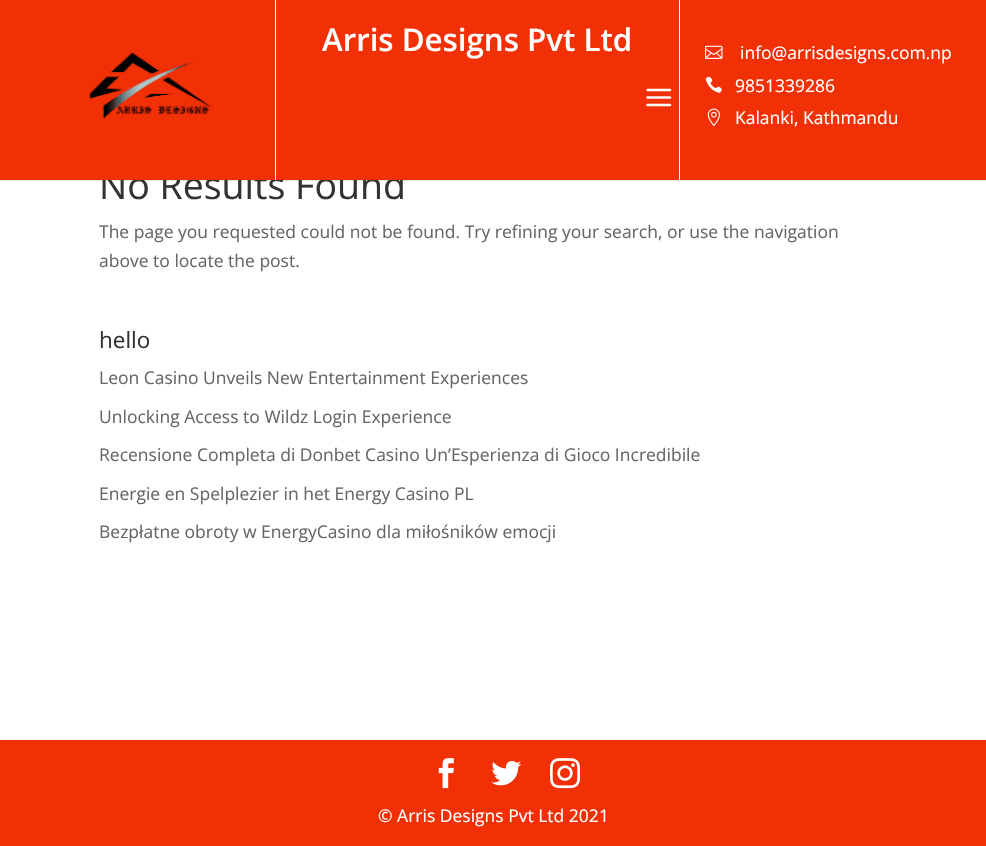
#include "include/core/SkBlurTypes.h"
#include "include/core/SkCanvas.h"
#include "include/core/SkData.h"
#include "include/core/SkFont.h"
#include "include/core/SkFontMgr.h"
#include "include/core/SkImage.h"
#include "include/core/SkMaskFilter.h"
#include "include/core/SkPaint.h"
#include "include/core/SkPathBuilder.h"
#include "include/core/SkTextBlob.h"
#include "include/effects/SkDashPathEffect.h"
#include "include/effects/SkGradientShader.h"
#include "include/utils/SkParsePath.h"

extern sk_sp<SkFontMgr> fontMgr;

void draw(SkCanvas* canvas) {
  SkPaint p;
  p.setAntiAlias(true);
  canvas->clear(SK_ColorWHITE);
  p.setColor(SkColorSetARGB(26, 0, 0, 0));
  canvas->drawRect(SkRect::MakeLTRB(0, 180, 986, 181), p);
  p.setColor(SkColorSetRGB(242, 48, 6));
  canvas->drawRect(SkRect::MakeLTRB(0, 740, 986, 846), p);
  canvas->drawImageRect(SkImages::DeferredFromEncodedData(SkData::MakeFromFileName("images/6.png")), SkRect::MakeLTRB(438, 758, 454, 789), SkSamplingOptions());
  canvas->drawImageRect(SkImages::DeferredFromEncodedData(SkData::MakeFromFileName("images/7.png")), SkRect::MakeLTRB(491, 761, 522, 786), SkSamplingOptions());
  canvas->drawImageRect(SkImages::DeferredFromEncodedData(SkData::MakeFromFileName("images/8.png")), SkRect::MakeLTRB(550, 758, 580, 789), SkSamplingOptions());
  SkFont font1(fontMgr->matchFamilyStyle("Open Sans", SkFontStyle::Normal()), 37.5f);
  font1.setSubpixel(true);
  p.setColor(SkColorSetRGB(51, 51, 51));
  canvas->drawString("No Results Found", 99, 199, font1, p);
  p.setColor(SkColorSetRGB(242, 48, 6));
  canvas->drawRect(SkRect::MakeLTRB(0, 0, 986, 180), p);
  canvas->drawImageRect(SkImages::DeferredFromEncodedData(SkData::MakeFromFileName("images/2.png")), SkRect::MakeLTRB(646, 88, 672, 107), SkSamplingOptions());
  canvas->drawImageRect(SkImages::DeferredFromEncodedData(SkData::MakeFromFileName("images/1.png")), SkRect::MakeLTRB(89, 52, 214, 119), SkSamplingOptions());
  SkFont font2(fontMgr->matchFamilyStyle("Open Sans", SkFontStyle::Normal()), 17.5f);
  font2.setSubpixel(true);
  p.setColor(SK_ColorWHITE);
  canvas->drawString("Kalanki, Kathmandu", 735, 124, font2, p);
  canvas->drawImageRect(SkImages::DeferredFromEncodedData(SkData::MakeFromFileName("images/5.png")), SkRect::MakeLTRB(707, 108, 720, 126), SkSamplingOptions());
  canvas->drawString("9851339286", 735, 92, font2, p);
  canvas->drawImageRect(SkImages::DeferredFromEncodedData(SkData::MakeFromFileName("images/4.png")), SkRect::MakeLTRB(705, 76, 722, 93), SkSamplingOptions());
  canvas->drawString("info@arrisdesigns.com.np", 740, 59, font2, p);
  canvas->drawImageRect(SkImages::DeferredFromEncodedData(SkData::MakeFromFileName("images/3.png")), SkRect::MakeLTRB(705, 45, 723, 59), SkSamplingOptions());
  SkFont font3(fontMgr->matchFamilyStyle("Open Sans", SkFontStyle(600, SkFontStyle::kNormal_Width, SkFontStyle::kUpright_Slant)), 31.25f);
  font3.setSubpixel(true);
  canvas->drawString("Arris Designs Pvt Ltd", 322, 51, font3, p);
  canvas->drawRect(SkRect::MakeLTRB(275, 0, 276, 180), p);
  canvas->drawRect(SkRect::MakeLTRB(679, 0, 680, 180), p);
  p.setColor(SkColorSetRGB(102, 102, 102));
  canvas->drawString("The page you requested could not be found. Try refining your search, or use the navigation", 99, 238, font2, p);
  canvas->drawString("above to locate the post.", 99, 267, font2, p);
  SkFont font4(fontMgr->matchFamilyStyle("Open Sans", SkFontStyle::Normal()), 22.5f);
  font4.setSubpixel(true);
  p.setColor(SkColorSetRGB(51, 51, 51));
  canvas->drawString("hello", 99, 348, font4, p);
  p.setColor(SkColorSetRGB(102, 102, 102));
  canvas->drawString("Leon Casino Unveils New Entertainment Experiences", 99, 384, font2, p);
  canvas->drawString("Unlocking Access to Wildz Login Experience", 99, 423, font2, p);
  canvas->drawString("Recensione Completa di Donbet Casino Un’Esperienza di Gioco Incredibile", 99, 461, font2, p);
  canvas->drawString("Energie en Spelplezier in het Energy Casino PL", 99, 500, font2, p);
  canvas->drawString("Bezpłatne obroty w EnergyCasino dla miłośników emocji", 99, 538, font2, p);
  p.setColor(SK_ColorWHITE);
  canvas->drawString("© Arris Designs Pvt Ltd 2021", 378, 822, font2, p);
}
